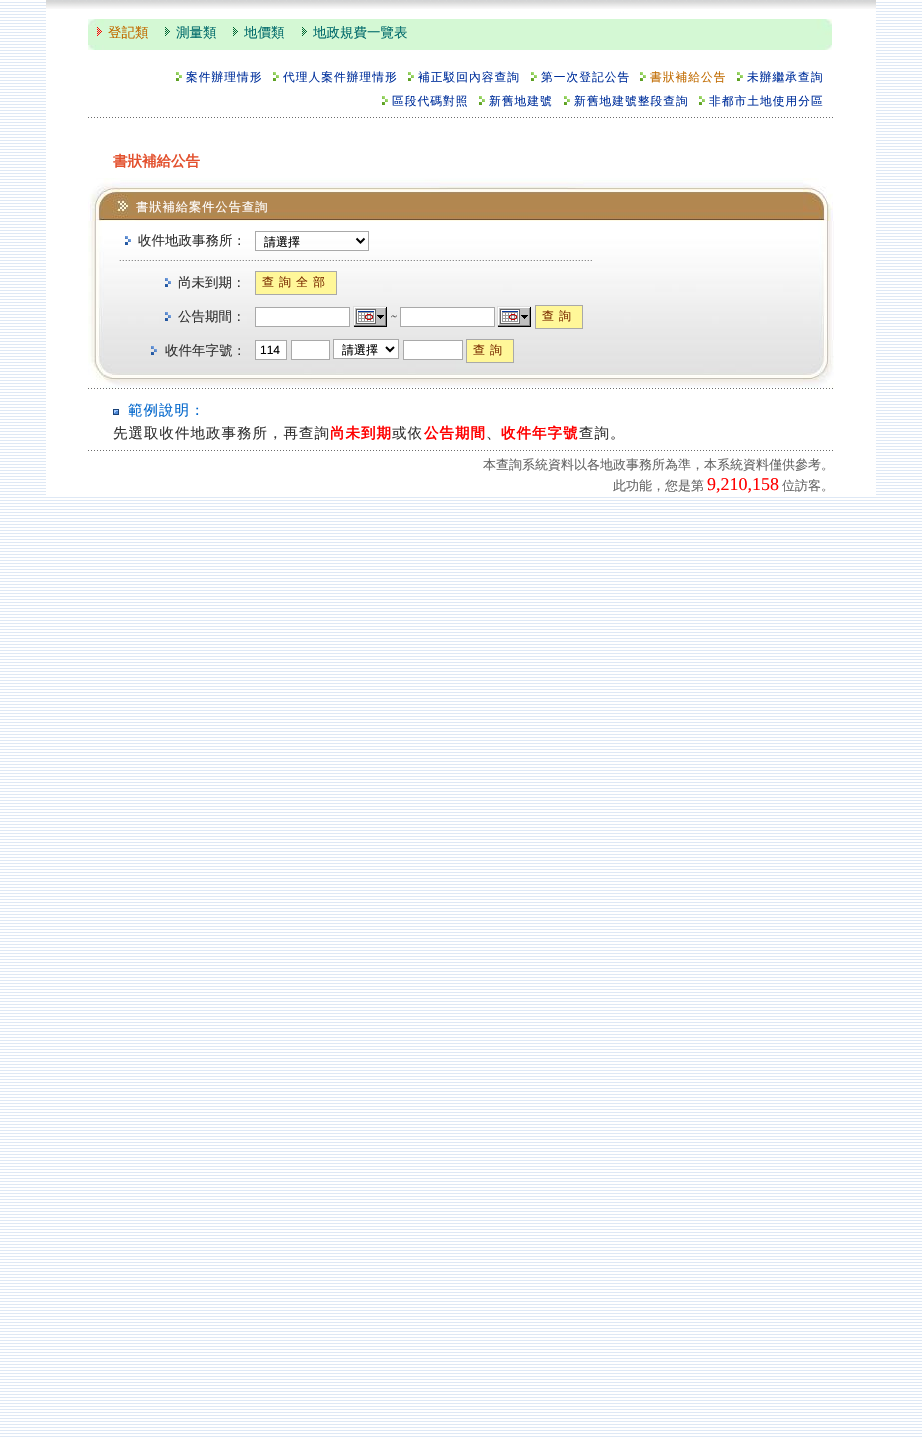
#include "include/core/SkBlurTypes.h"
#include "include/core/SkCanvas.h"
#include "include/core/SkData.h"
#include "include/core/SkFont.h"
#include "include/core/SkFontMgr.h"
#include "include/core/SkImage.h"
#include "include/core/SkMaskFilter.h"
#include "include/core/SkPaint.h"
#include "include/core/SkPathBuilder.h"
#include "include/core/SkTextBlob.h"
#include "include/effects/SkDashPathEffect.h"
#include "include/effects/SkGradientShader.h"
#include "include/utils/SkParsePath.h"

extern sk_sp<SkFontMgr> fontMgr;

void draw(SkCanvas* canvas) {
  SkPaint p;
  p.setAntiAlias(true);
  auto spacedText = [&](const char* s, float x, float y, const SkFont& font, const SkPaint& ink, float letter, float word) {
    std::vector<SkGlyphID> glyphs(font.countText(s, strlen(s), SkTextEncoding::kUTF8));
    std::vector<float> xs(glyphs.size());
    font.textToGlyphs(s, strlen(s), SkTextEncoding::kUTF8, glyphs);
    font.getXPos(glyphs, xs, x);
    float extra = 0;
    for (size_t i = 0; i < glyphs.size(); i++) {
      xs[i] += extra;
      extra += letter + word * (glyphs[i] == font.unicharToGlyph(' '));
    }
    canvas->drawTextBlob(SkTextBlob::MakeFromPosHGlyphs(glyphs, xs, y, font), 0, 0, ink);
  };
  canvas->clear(SK_ColorWHITE);
  canvas->drawImageRect(SkImages::DeferredFromEncodedData(SkData::MakeFromFileName("images/1.png")), SkRect::MakeLTRB(0, 2, 922, 1437), SkSamplingOptions());
  p.setColor(SK_ColorWHITE);
  canvas->drawRect(SkRect::MakeLTRB(46, 11, 876, 123), p);
  canvas->drawImageRect(SkImages::DeferredFromEncodedData(SkData::MakeFromFileName("images/2.png")), SkRect::MakeLTRB(46, 0, 876, 9), SkSamplingOptions());
  canvas->drawImageRect(SkImages::DeferredFromEncodedData(SkData::MakeFromFileName("images/3.png")), SkRect::MakeLTRB(88, 19, 801, 45), SkSamplingOptions());
  canvas->drawImageRect(SkImages::DeferredFromEncodedData(SkData::MakeFromFileName("images/4.png")), SkRect::MakeLTRB(97, 27, 102, 36), SkSamplingOptions());
  canvas->drawImageRect(SkImages::DeferredFromEncodedData(SkData::MakeFromFileName("images/5.png")), SkRect::MakeLTRB(165, 27, 170, 36), SkSamplingOptions());
  canvas->drawImageRect(SkImages::DeferredFromEncodedData(SkData::MakeFromFileName("images/5.png")), SkRect::MakeLTRB(233, 27, 238, 36), SkSamplingOptions());
  canvas->drawImageRect(SkImages::DeferredFromEncodedData(SkData::MakeFromFileName("images/5.png")), SkRect::MakeLTRB(302, 27, 307, 36), SkSamplingOptions());
  canvas->drawImageRect(SkImages::DeferredFromEncodedData(SkData::MakeFromFileName("images/6.png")), SkRect::MakeLTRB(801, 19, 832, 45), SkSamplingOptions());
  canvas->drawImageRect(SkImages::DeferredFromEncodedData(SkData::MakeFromFileName("images/7.png")), SkRect::MakeLTRB(88, 45, 801, 50), SkSamplingOptions());
  canvas->drawImageRect(SkImages::DeferredFromEncodedData(SkData::MakeFromFileName("images/8.png")), SkRect::MakeLTRB(801, 45, 832, 50), SkSamplingOptions());
  canvas->drawImageRect(SkImages::DeferredFromEncodedData(SkData::MakeFromFileName("images/9.png")), SkRect::MakeLTRB(176, 72, 182, 81), SkSamplingOptions());
  canvas->drawImageRect(SkImages::DeferredFromEncodedData(SkData::MakeFromFileName("images/9.png")), SkRect::MakeLTRB(273, 72, 279, 81), SkSamplingOptions());
  canvas->drawImageRect(SkImages::DeferredFromEncodedData(SkData::MakeFromFileName("images/9.png")), SkRect::MakeLTRB(408, 72, 414, 81), SkSamplingOptions());
  canvas->drawImageRect(SkImages::DeferredFromEncodedData(SkData::MakeFromFileName("images/9.png")), SkRect::MakeLTRB(531, 72, 537, 81), SkSamplingOptions());
  canvas->drawImageRect(SkImages::DeferredFromEncodedData(SkData::MakeFromFileName("images/9.png")), SkRect::MakeLTRB(640, 72, 646, 81), SkSamplingOptions());
  canvas->drawImageRect(SkImages::DeferredFromEncodedData(SkData::MakeFromFileName("images/9.png")), SkRect::MakeLTRB(737, 72, 743, 81), SkSamplingOptions());
  canvas->drawImageRect(SkImages::DeferredFromEncodedData(SkData::MakeFromFileName("images/9.png")), SkRect::MakeLTRB(382, 96, 388, 105), SkSamplingOptions());
  canvas->drawImageRect(SkImages::DeferredFromEncodedData(SkData::MakeFromFileName("images/9.png")), SkRect::MakeLTRB(479, 96, 485, 105), SkSamplingOptions());
  canvas->drawImageRect(SkImages::DeferredFromEncodedData(SkData::MakeFromFileName("images/9.png")), SkRect::MakeLTRB(564, 96, 570, 105), SkSamplingOptions());
  canvas->drawImageRect(SkImages::DeferredFromEncodedData(SkData::MakeFromFileName("images/9.png")), SkRect::MakeLTRB(699, 96, 705, 105), SkSamplingOptions());
  canvas->drawImageRect(SkImages::DeferredFromEncodedData(SkData::MakeFromFileName("images/10.png")), SkRect::MakeLTRB(88, 117, 833, 118), SkSamplingOptions());
  canvas->drawRect(SkRect::MakeLTRB(46, 125, 876, 495), p);
  canvas->drawImageRect(SkImages::DeferredFromEncodedData(SkData::MakeFromFileName("images/11.png")), SkRect::MakeLTRB(88, 178, 803, 221), SkSamplingOptions());
  canvas->drawImageRect(SkImages::DeferredFromEncodedData(SkData::MakeFromFileName("images/12.png")), SkRect::MakeLTRB(803, 178, 833, 221), SkSamplingOptions());
  canvas->drawImageRect(SkImages::DeferredFromEncodedData(SkData::MakeFromFileName("images/13.png")), SkRect::MakeLTRB(88, 221, 803, 388), SkSamplingOptions());
  canvas->drawImageRect(SkImages::DeferredFromEncodedData(SkData::MakeFromFileName("images/14.png")), SkRect::MakeLTRB(125, 236, 131, 245), SkSamplingOptions());
  canvas->drawRect(SkRect::MakeLTRB(256, 249, 368, 250), p);
  p.setStyle(SkPaint::kStroke_Style);
  p.setStrokeWidth(1);
  p.setColor(SkColorSetRGB(169, 169, 169));
  canvas->drawRect(SkRect::MakeLTRB(255.5f, 231.5f, 368.5f, 250.5f), p);
  p.setStrokeWidth(2);
  p.setColor(SK_ColorBLACK);
  canvas->drawPath(SkPathBuilder().moveTo(356.5f, 238.5f).lineTo(360.5f, 242.5f).lineTo(364.5f, 238.5f).detach(), p);
  canvas->drawImageRect(SkImages::DeferredFromEncodedData(SkData::MakeFromFileName("images/15.png")), SkRect::MakeLTRB(119, 260, 592, 261), SkSamplingOptions());
  canvas->drawImageRect(SkImages::DeferredFromEncodedData(SkData::MakeFromFileName("images/16.png")), SkRect::MakeLTRB(165, 278, 171, 287), SkSamplingOptions());
  p.setStyle(SkPaint::kFill_Style);
  p.setColor(SkColorSetRGB(255, 247, 153));
  canvas->drawRect(SkRect::MakeLTRB(255.5f, 271.5f, 336.5f, 294.5f), p);
  p.setStyle(SkPaint::kStroke_Style);
  p.setStrokeWidth(1);
  p.setColor(SkColorSetRGB(169, 169, 169));
  canvas->drawRect(SkRect::MakeLTRB(255.5f, 271.5f, 336.5f, 294.5f), p);
  canvas->drawImageRect(SkImages::DeferredFromEncodedData(SkData::MakeFromFileName("images/17.png")), SkRect::MakeLTRB(165, 312, 171, 321), SkSamplingOptions());
  p.setStyle(SkPaint::kFill_Style);
  p.setColor(SK_ColorWHITE);
  canvas->drawRect(SkRect::MakeLTRB(255.5f, 307.5f, 349.5f, 326.5f), p);
  p.setStyle(SkPaint::kStroke_Style);
  p.setColor(SkColorSetRGB(169, 169, 169));
  canvas->drawRect(SkRect::MakeLTRB(255.5f, 307.5f, 349.5f, 326.5f), p);
  canvas->drawImageRect(SkImages::DeferredFromEncodedData(SkData::MakeFromFileName("images/18.png")), SkRect::MakeLTRB(353, 306, 387, 327), SkSamplingOptions());
  p.setStyle(SkPaint::kFill_Style);
  p.setColor(SK_ColorWHITE);
  canvas->drawRect(SkRect::MakeLTRB(400.5f, 307.5f, 494.5f, 326.5f), p);
  p.setStyle(SkPaint::kStroke_Style);
  p.setColor(SkColorSetRGB(169, 169, 169));
  canvas->drawRect(SkRect::MakeLTRB(400.5f, 307.5f, 494.5f, 326.5f), p);
  canvas->drawImageRect(SkImages::DeferredFromEncodedData(SkData::MakeFromFileName("images/18.png")), SkRect::MakeLTRB(497, 306, 531, 327), SkSamplingOptions());
  p.setStyle(SkPaint::kFill_Style);
  p.setColor(SkColorSetRGB(255, 247, 153));
  canvas->drawRect(SkRect::MakeLTRB(535.5f, 305.5f, 582.5f, 328.5f), p);
  p.setStyle(SkPaint::kStroke_Style);
  p.setColor(SkColorSetRGB(169, 169, 169));
  canvas->drawRect(SkRect::MakeLTRB(535.5f, 305.5f, 582.5f, 328.5f), p);
  canvas->drawImageRect(SkImages::DeferredFromEncodedData(SkData::MakeFromFileName("images/19.png")), SkRect::MakeLTRB(151, 346, 157, 355), SkSamplingOptions());
  p.setStyle(SkPaint::kFill_Style);
  p.setColor(SK_ColorWHITE);
  canvas->drawRect(SkRect::MakeLTRB(255.5f, 340.5f, 286.5f, 359.5f), p);
  p.setStyle(SkPaint::kStroke_Style);
  p.setColor(SkColorSetRGB(169, 169, 169));
  canvas->drawRect(SkRect::MakeLTRB(255.5f, 340.5f, 286.5f, 359.5f), p);
  p.setStyle(SkPaint::kFill_Style);
  p.setColor(SK_ColorWHITE);
  canvas->drawRect(SkRect::MakeLTRB(291.5f, 340.5f, 329.5f, 359.5f), p);
  p.setStyle(SkPaint::kStroke_Style);
  p.setColor(SkColorSetRGB(169, 169, 169));
  canvas->drawRect(SkRect::MakeLTRB(291.5f, 340.5f, 329.5f, 359.5f), p);
  p.setStyle(SkPaint::kFill_Style);
  p.setColor(SK_ColorWHITE);
  canvas->drawRect(SkRect::MakeLTRB(333.5f, 339.5f, 398.5f, 358.5f), p);
  p.setStyle(SkPaint::kStroke_Style);
  p.setColor(SkColorSetRGB(169, 169, 169));
  canvas->drawRect(SkRect::MakeLTRB(333.5f, 339.5f, 398.5f, 358.5f), p);
  p.setStrokeWidth(2);
  p.setColor(SK_ColorBLACK);
  canvas->drawPath(SkPathBuilder().moveTo(386, 347).lineTo(390, 351).lineTo(394, 347).detach(), p);
  p.setStyle(SkPaint::kFill_Style);
  p.setColor(SK_ColorWHITE);
  canvas->drawRect(SkRect::MakeLTRB(403.5f, 340.5f, 462.5f, 359.5f), p);
  p.setStyle(SkPaint::kStroke_Style);
  p.setStrokeWidth(1);
  p.setColor(SkColorSetRGB(169, 169, 169));
  canvas->drawRect(SkRect::MakeLTRB(403.5f, 340.5f, 462.5f, 359.5f), p);
  p.setStyle(SkPaint::kFill_Style);
  p.setColor(SkColorSetRGB(255, 247, 153));
  canvas->drawRect(SkRect::MakeLTRB(466.5f, 339.5f, 513.5f, 362.5f), p);
  p.setStyle(SkPaint::kStroke_Style);
  p.setColor(SkColorSetRGB(169, 169, 169));
  canvas->drawRect(SkRect::MakeLTRB(466.5f, 339.5f, 513.5f, 362.5f), p);
  canvas->drawImageRect(SkImages::DeferredFromEncodedData(SkData::MakeFromFileName("images/20.png")), SkRect::MakeLTRB(803, 221, 834, 388), SkSamplingOptions());
  canvas->drawImageRect(SkImages::DeferredFromEncodedData(SkData::MakeFromFileName("images/10.png")), SkRect::MakeLTRB(88, 388, 833, 389), SkSamplingOptions());
  canvas->drawImageRect(SkImages::DeferredFromEncodedData(SkData::MakeFromFileName("images/21.png")), SkRect::MakeLTRB(113, 409, 119, 415), SkSamplingOptions());
  canvas->drawImageRect(SkImages::DeferredFromEncodedData(SkData::MakeFromFileName("images/10.png")), SkRect::MakeLTRB(88, 450, 833, 451), SkSamplingOptions());
  SkFont font1(fontMgr->matchFamilyStyle("WenQuanYi Zen Hei", SkFontStyle(500, SkFontStyle::kNormal_Width, SkFontStyle::kUpright_Slant)), 13.5f);
  font1.setSubpixel(true);
  p.setStyle(SkPaint::kFill_Style);
  p.setColor(SkColorSetRGB(193, 107, 0));
  canvas->drawString("登記類", 108, 37, font1, p);
  p.setColor(SkColorSetRGB(3, 108, 108));
  canvas->drawString("測量類", 176, 37, font1, p);
  canvas->drawString("地價類", 244, 37, font1, p);
  canvas->drawString("地政規費一覽表", 313, 37, font1, p);
  SkFont font2(fontMgr->matchFamilyStyle("WenQuanYi Zen Hei", SkFontStyle(500, SkFontStyle::kNormal_Width, SkFontStyle::kUpright_Slant)), 11.75f);
  font2.setSubpixel(true);
  p.setColor(SkColorSetRGB(0, 48, 156));
  spacedText("案件辦理情形", 186, 81, font2, p, 1, 0);
  spacedText("代理人案件辦理情形", 283, 81, font2, p, 1, 0);
  spacedText("補正駁回內容查詢", 418, 81, font2, p, 1, 0);
  spacedText("第一次登記公告", 541, 81, font2, p, 1, 0);
  p.setColor(SkColorSetRGB(193, 107, 0));
  spacedText("書狀補給公告", 650, 81, font2, p, 1, 0);
  p.setColor(SkColorSetRGB(0, 48, 156));
  spacedText("未辦繼承查詢", 747, 81, font2, p, 1, 0);
  spacedText("區段代碼對照", 392, 105, font2, p, 1, 0);
  spacedText("新舊地建號", 489, 105, font2, p, 1, 0);
  spacedText("新舊地建號整段查詢", 574, 105, font2, p, 1, 0);
  spacedText("非都市土地使用分區", 709, 105, font2, p, 1, 0);
  SkFont font3(fontMgr->matchFamilyStyle("WenQuanYi Zen Hei", SkFontStyle::Bold()), 14.5f);
  font3.setSubpixel(true);
  p.setColor(SkColorSetRGB(227, 80, 45));
  canvas->drawString("書狀補給公告", 113, 166, font3, p);
  SkFont font4(fontMgr->matchFamilyStyle("WenQuanYi Zen Hei", SkFontStyle(500, SkFontStyle::kNormal_Width, SkFontStyle::kUpright_Slant)), 12.25f);
  font4.setSubpixel(true);
  p.setColor(SK_ColorWHITE);
  spacedText("書狀補給案件公告查詢", 136, 211, font4, p, 1, 0);
  p.setColor(SkColorSetRGB(51, 51, 51));
  canvas->drawString("收件地政事務所：", 138, 245, font1, p);
  SkFont font5(fontMgr->matchFamilyStyle("WenQuanYi Zen Hei", SkFontStyle(500, SkFontStyle::kNormal_Width, SkFontStyle::kUpright_Slant)), 12);
  font5.setSubpixel(true);
  p.setColor(SK_ColorBLACK);
  canvas->drawString("請選擇", 264, 246, font5, p);
  p.setColor(SkColorSetRGB(51, 51, 51));
  canvas->drawString("尚未到期：", 178, 287, font1, p);
  p.setColor(SkColorSetRGB(123, 45, 0));
  spacedText("查詢全部", 262, 286, font5, p, 5, 0);
  p.setColor(SkColorSetRGB(51, 51, 51));
  canvas->drawString("公告期間：", 178, 321, font1, p);
  SkFont font6(fontMgr->matchFamilyStyle("Liberation Serif", SkFontStyle::Normal()), 11);
  font6.setSubpixel(true);
  canvas->drawString("~", 391, 320, font6, p);
  p.setColor(SkColorSetRGB(123, 45, 0));
  spacedText("查詢", 542, 320, font5, p, 5, 0);
  p.setColor(SkColorSetRGB(51, 51, 51));
  canvas->drawString("收件年字號：", 165, 355, font1, p);
  SkFont font7(fontMgr->matchFamilyStyle("Liberation Sans", SkFontStyle::Normal()), 12);
  font7.setSubpixel(true);
  p.setColor(SK_ColorBLACK);
  canvas->drawString("114", 260, 354, font7, p);
  canvas->drawString("請選擇", 342, 354, font5, p);
  p.setColor(SkColorSetRGB(123, 45, 0));
  spacedText("查詢", 473, 354, font5, p, 5, 0);
  SkFont font8(fontMgr->matchFamilyStyle("WenQuanYi Zen Hei", SkFontStyle(500, SkFontStyle::kNormal_Width, SkFontStyle::kUpright_Slant)), 14.5f);
  font8.setSubpixel(true);
  p.setColor(SkColorSetRGB(0, 102, 204));
  spacedText("範例說明：", 128, 415, font8, p, 1, 0);
  p.setColor(SkColorSetRGB(51, 51, 51));
  spacedText("先選取收件地政事務所，再查詢", 113, 438, font8, p, 1, 0);
  p.setColor(SkColorSetRGB(255, 0, 0));
  spacedText("尚未到期", 330, 438, font3, p, 1, 0);
  p.setColor(SkColorSetRGB(51, 51, 51));
  spacedText("或依", 392, 438, font8, p, 1, 0);
  p.setColor(SkColorSetRGB(255, 0, 0));
  spacedText("公告期間", 424, 438, font3, p, 1, 0);
  p.setColor(SkColorSetRGB(51, 51, 51));
  spacedText("、", 486, 438, font8, p, 1, 0);
  p.setColor(SkColorSetRGB(255, 0, 0));
  spacedText("收件年字號", 501, 438, font3, p, 1, 0);
  p.setColor(SkColorSetRGB(51, 51, 51));
  spacedText("查詢。", 579, 438, font8, p, 1, 0);
  SkFont font9(fontMgr->matchFamilyStyle("WenQuanYi Zen Hei", SkFontStyle(500, SkFontStyle::kNormal_Width, SkFontStyle::kUpright_Slant)), 13);
  font9.setSubpixel(true);
  p.setColor(SkColorSetRGB(102, 102, 102));
  canvas->drawString("本查詢系統資料以各地政事務所為準，本系統資料僅供參考。", 483, 469, font9, p);
  canvas->drawString("此功能，您是第", 613, 490, font9, p);
  SkFont font10(fontMgr->matchFamilyStyle("Liberation Serif", SkFontStyle::Normal()), 18);
  font10.setSubpixel(true);
  p.setColor(SkColorSetRGB(255, 0, 0));
  canvas->drawString("9,210,158", 707, 490, font10, p);
  p.setColor(SkColorSetRGB(102, 102, 102));
  canvas->drawString("位訪客。", 782, 490, font9, p);
}
